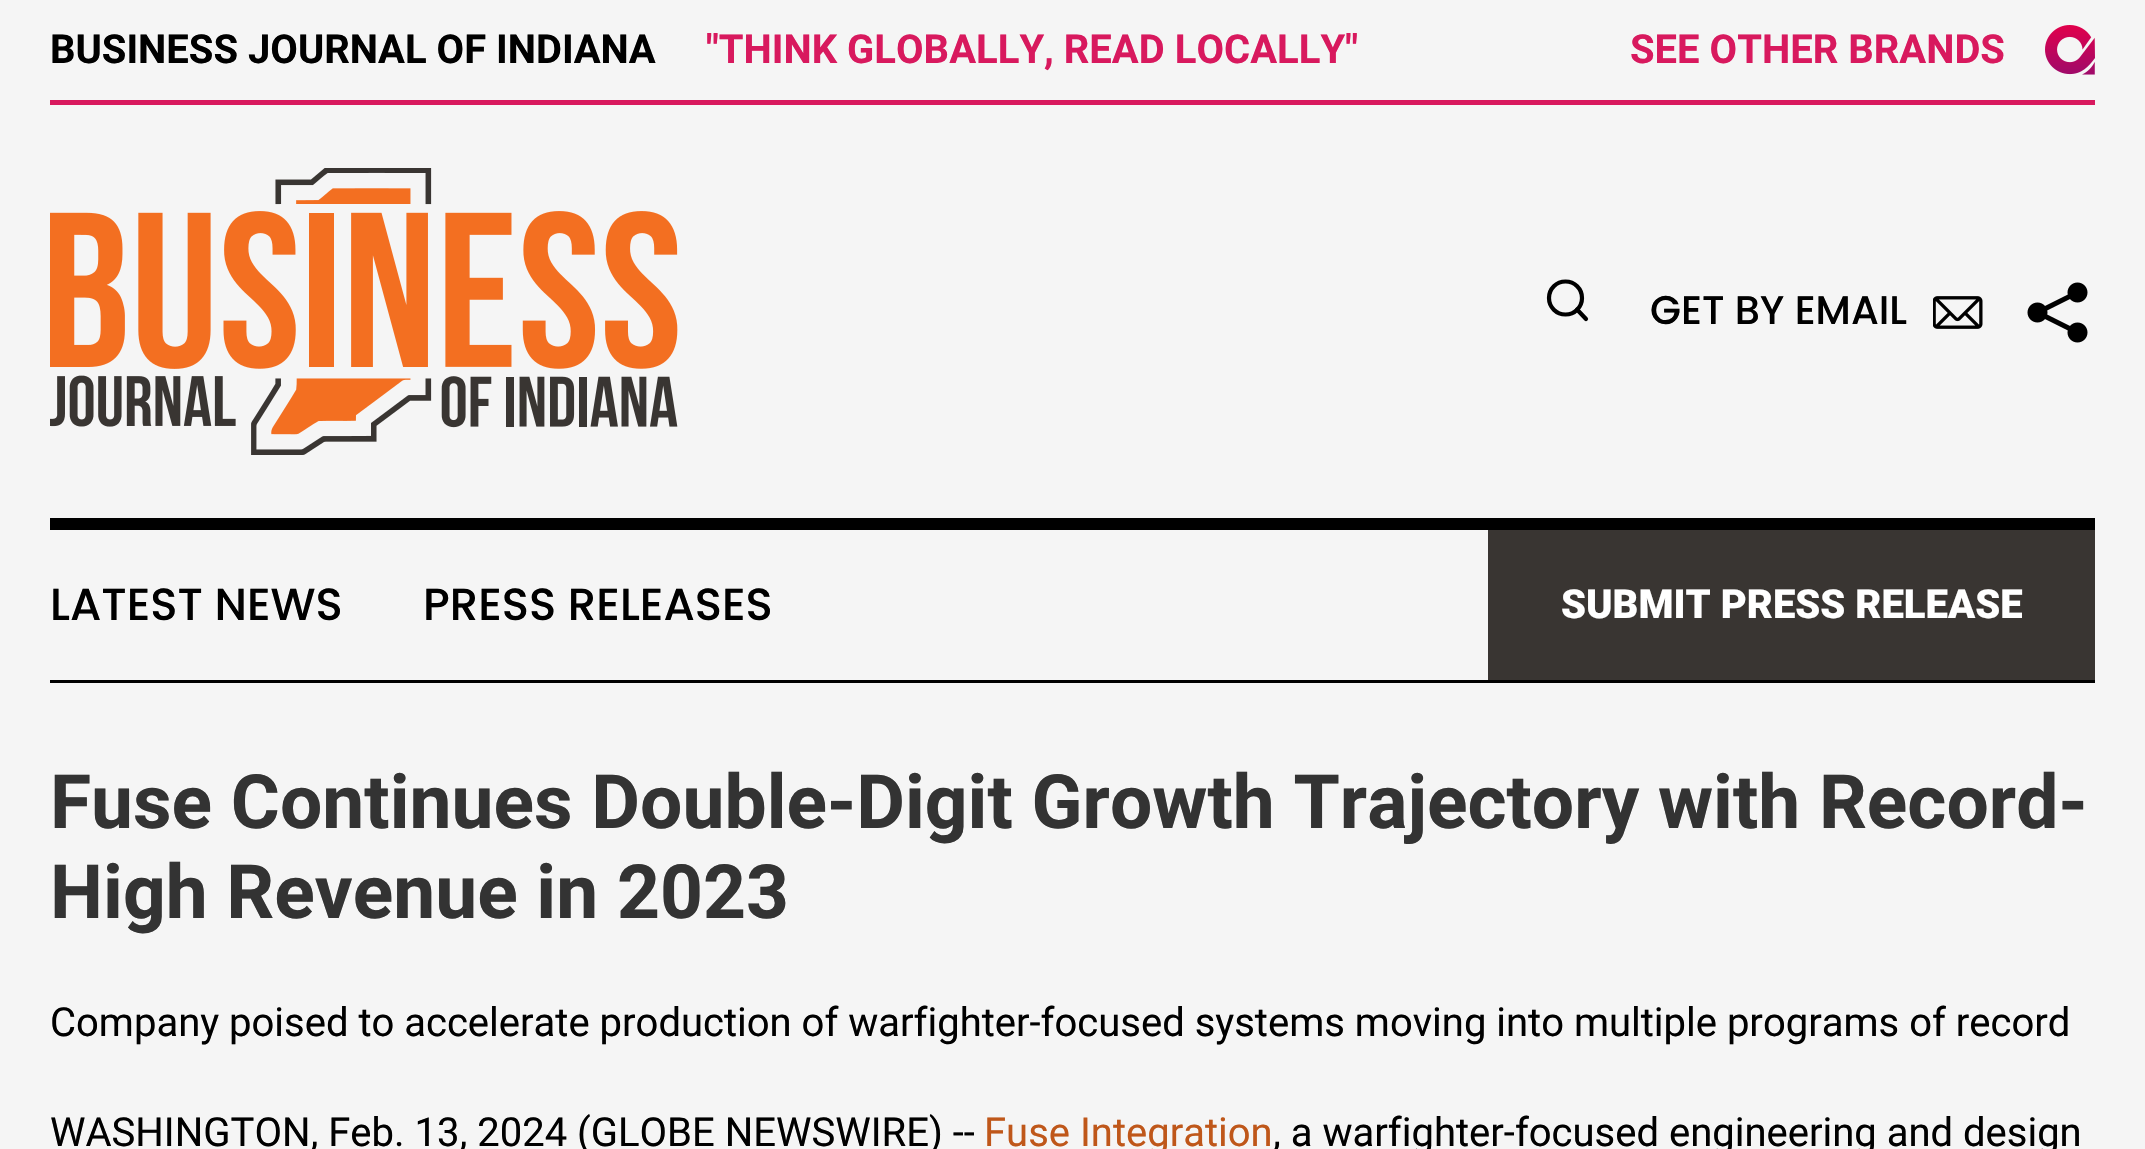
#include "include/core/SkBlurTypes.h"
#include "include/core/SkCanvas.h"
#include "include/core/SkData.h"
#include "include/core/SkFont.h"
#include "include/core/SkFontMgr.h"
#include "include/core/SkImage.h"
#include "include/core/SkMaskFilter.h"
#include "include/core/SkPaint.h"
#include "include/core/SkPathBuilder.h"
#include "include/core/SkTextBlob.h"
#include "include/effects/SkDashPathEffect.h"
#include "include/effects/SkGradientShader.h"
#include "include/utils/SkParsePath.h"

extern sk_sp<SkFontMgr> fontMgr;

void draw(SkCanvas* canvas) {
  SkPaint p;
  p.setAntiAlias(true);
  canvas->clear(SkColorSetRGB(245, 245, 245));
  p.setColor(SkColorSetRGB(216, 25, 94));
  canvas->drawRect(SkRect::MakeLTRB(50, 100, 2095, 105), p);
  canvas->drawImageRect(SkImages::DeferredFromEncodedData(SkData::MakeFromFileName("images/1.png")), SkRect::MakeLTRB(2045, 25, 2095, 75), SkSamplingOptions());
  p.setColor(SK_ColorBLACK);
  canvas->drawRect(SkRect::MakeLTRB(50, 680, 2095, 683), p);
  canvas->drawImageRect(SkImages::DeferredFromEncodedData(SkData::MakeFromFileName("images/2.png")), SkRect::MakeLTRB(50, 168, 678, 455), SkSamplingOptions());
  p.setStyle(SkPaint::kStroke_Style);
  p.setStrokeWidth(4.2f);
  canvas->drawCircle(1565.5f, 298, 16.5f, p);
  p.setStrokeCap(SkPaint::kRound_Cap);
  p.setStrokeJoin(SkPaint::kRound_Join);
  canvas->drawPath(SkPathBuilder().moveTo(1586, 319).lineTo(1577, 309.5f).detach(), p);
  canvas->drawImageRect(SkImages::DeferredFromEncodedData(SkData::MakeFromFileName("images/3.png")), SkRect::MakeLTRB(1933, 296, 1983, 329), SkSamplingOptions());
  canvas->drawImageRect(SkImages::DeferredFromEncodedData(SkData::MakeFromFileName("images/4.png")), SkRect::MakeLTRB(2027, 282, 2088, 343), SkSamplingOptions());
  p.setStyle(SkPaint::kFill_Style);
  canvas->drawRect(SkRect::MakeLTRB(50, 518, 2095, 530), p);
  p.setColor(SkColorSetRGB(57, 53, 50));
  canvas->drawRect(SkRect::MakeLTRB(1488, 530, 2095, 680), p);
  SkFont font1(fontMgr->matchFamilyStyle("Roboto", SkFontStyle::Bold()), 40);
  font1.setSubpixel(true);
  p.setColor(SK_ColorBLACK);
  canvas->drawString("BUSINESS JOURNAL OF INDIANA", 50, 63, font1, p);
  p.setColor(SkColorSetRGB(216, 25, 94));
  canvas->drawString("\"THINK GLOBALLY, READ LOCALLY\"", 706, 63, font1, p);
  canvas->drawString("SEE OTHER BRANDS", 1630, 63, font1, p);
  SkFont font2(fontMgr->matchFamilyStyle("Poppins", SkFontStyle(500, SkFontStyle::kNormal_Width, SkFontStyle::kUpright_Slant)), 40);
  font2.setSubpixel(true);
  p.setColor(SK_ColorBLACK);
  canvas->drawString("GET BY EMAIL", 1650, 324, font2, p);
  SkFont font3(fontMgr->matchFamilyStyle("Poppins", SkFontStyle(500, SkFontStyle::kNormal_Width, SkFontStyle::kUpright_Slant)), 45);
  font3.setSubpixel(true);
  canvas->drawString("LATEST NEWS", 50, 620, font3, p);
  canvas->drawString("PRESS RELEASES", 423, 620, font3, p);
  SkFont font4(fontMgr->matchFamilyStyle("Roboto", SkFontStyle(900, SkFontStyle::kNormal_Width, SkFontStyle::kUpright_Slant)), 40);
  font4.setSubpixel(true);
  p.setColor(SK_ColorWHITE);
  canvas->drawString("SUBMIT PRESS RELEASE", 1561, 618, font4, p);
  SkFont font5(fontMgr->matchFamilyStyle("Roboto", SkFontStyle::Bold()), 75);
  font5.setSubpixel(true);
  p.setColor(SkColorSetRGB(51, 51, 51));
  canvas->drawString("Fuse Continues Double-Digit Growth Trajectory with Record-", 50, 828, font5, p);
  canvas->drawString("High Revenue in 2023", 50, 918, font5, p);
  SkFont font6(fontMgr->matchFamilyStyle("Roboto", SkFontStyle::Normal()), 40);
  font6.setSubpixel(true);
  p.setColor(SK_ColorBLACK);
  canvas->drawString("Company poised to accelerate production of warfighter-focused systems moving into multiple programs of record", 50, 1036, font6, p);
  canvas->drawString("WASHINGTON, Feb. 13, 2024 (GLOBE NEWSWIRE) --", 50, 1146, font6, p);
  p.setColor(SkColorSetRGB(191, 87, 26));
  canvas->drawString("Fuse Integration", 984, 1146, font6, p);
  p.setColor(SK_ColorBLACK);
  canvas->drawString(", a warfighter-focused engineering and design", 1273, 1146, font6, p);
}
